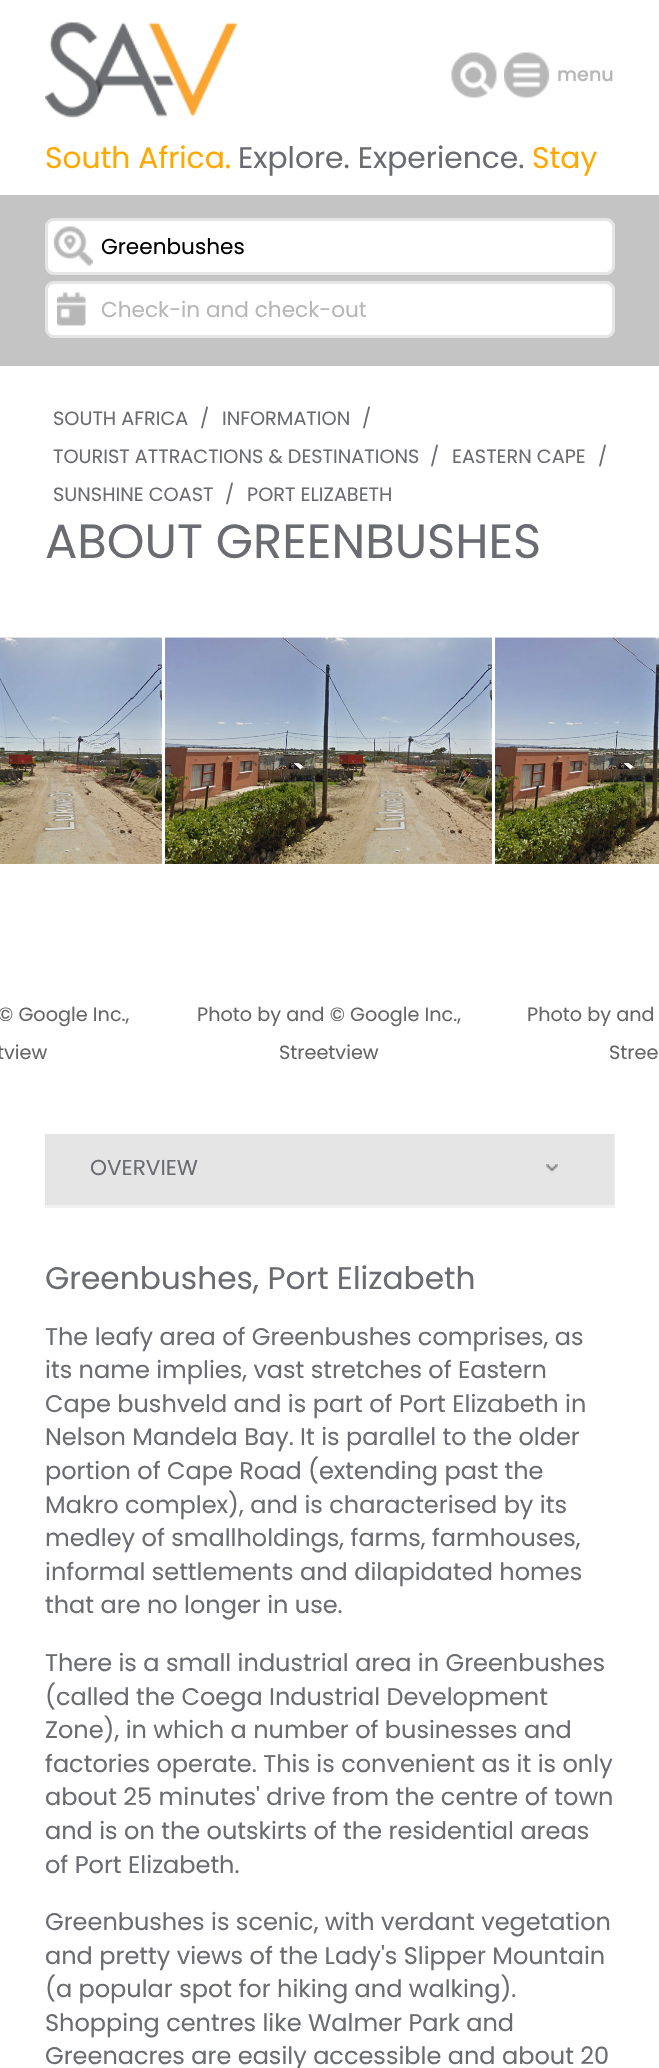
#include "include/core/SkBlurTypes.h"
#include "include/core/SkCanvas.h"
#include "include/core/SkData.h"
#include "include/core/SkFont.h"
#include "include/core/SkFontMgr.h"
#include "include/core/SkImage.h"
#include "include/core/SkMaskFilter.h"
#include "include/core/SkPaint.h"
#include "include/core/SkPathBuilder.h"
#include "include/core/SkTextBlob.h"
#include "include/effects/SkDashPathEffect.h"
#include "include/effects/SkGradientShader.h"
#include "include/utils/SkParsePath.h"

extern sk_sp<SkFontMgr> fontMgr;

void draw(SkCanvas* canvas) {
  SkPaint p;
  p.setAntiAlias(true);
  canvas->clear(SK_ColorWHITE);
  canvas->drawImageRect(SkImages::DeferredFromEncodedData(SkData::MakeFromFileName("images/1.png")), SkRect::MakeLTRB(45, 22, 238, 118), SkSamplingOptions());
  canvas->drawImageRect(SkImages::DeferredFromEncodedData(SkData::MakeFromFileName("images/2.png")), SkRect::MakeLTRB(451, 52, 497, 98), SkSamplingOptions());
  canvas->drawImageRect(SkImages::DeferredFromEncodedData(SkData::MakeFromFileName("images/3.png")), SkRect::MakeLTRB(504, 52, 550, 98), SkSamplingOptions());
  p.setColor(SkColorSetRGB(196, 196, 196));
  canvas->drawRect(SkRect::MakeLTRB(0, 195, 659, 366), p);
  p.setStyle(SkPaint::kStroke_Style);
  p.setStrokeWidth(3);
  p.setColor(SkColorSetRGB(229, 229, 229));
  canvas->drawRoundRect(SkRect::MakeLTRB(46.5f, 219.5f, 613.5f, 273.5f), 7.5f, 7.5f, p);
  p.setStyle(SkPaint::kFill_Style);
  p.setColor(SK_ColorWHITE);
  canvas->drawRoundRect(SkRect::MakeLTRB(46.5f, 219.5f, 613.5f, 273.5f), 7.5f, 7.5f, p);
  p.setStyle(SkPaint::kStroke_Style);
  p.setColor(SkColorSetRGB(229, 229, 229));
  canvas->drawRoundRect(SkRect::MakeLTRB(46.5f, 219.5f, 613.5f, 273.5f), 7.5f, 7.5f, p);
  canvas->drawImageRect(SkImages::DeferredFromEncodedData(SkData::MakeFromFileName("images/4.png")), SkRect::MakeLTRB(54, 226, 93, 266), SkSamplingOptions());
  canvas->drawRoundRect(SkRect::MakeLTRB(46.5f, 282.5f, 613.5f, 336.5f), 7.5f, 7.5f, p);
  p.setStyle(SkPaint::kFill_Style);
  p.setColor(SK_ColorWHITE);
  canvas->drawRoundRect(SkRect::MakeLTRB(46.5f, 282.5f, 613.5f, 336.5f), 7.5f, 7.5f, p);
  p.setStyle(SkPaint::kStroke_Style);
  p.setColor(SkColorSetRGB(229, 229, 229));
  canvas->drawRoundRect(SkRect::MakeLTRB(46.5f, 282.5f, 613.5f, 336.5f), 7.5f, 7.5f, p);
  canvas->drawImageRect(SkImages::DeferredFromEncodedData(SkData::MakeFromFileName("images/5.png")), SkRect::MakeLTRB(57, 292, 86, 326), SkSamplingOptions());
  canvas->drawImageRect(SkImages::DeferredFromEncodedData(SkData::MakeFromFileName("images/6.png")), SkRect::MakeLTRB(0, 637, 162, 864), SkSamplingOptions());
  canvas->drawImageRect(SkImages::DeferredFromEncodedData(SkData::MakeFromFileName("images/7.png")), SkRect::MakeLTRB(165, 637, 492, 864), SkSamplingOptions());
  canvas->drawImageRect(SkImages::DeferredFromEncodedData(SkData::MakeFromFileName("images/8.png")), SkRect::MakeLTRB(495, 637, 659, 864), SkSamplingOptions());
  p.setStyle(SkPaint::kFill_Style);
  p.setColor(SkColorSetRGB(241, 241, 241));
  canvas->drawRect(SkRect::MakeLTRB(45, 1205, 615, 1208), p);
  p.setColor(SkColorSetRGB(229, 229, 229));
  canvas->drawRect(SkRect::MakeLTRB(45, 1134, 614, 1205), p);
  canvas->drawImageRect(SkImages::DeferredFromEncodedData(SkData::MakeFromFileName("images/9.png")), SkRect::MakeLTRB(546, 1164, 558, 1172), SkSamplingOptions());
  p.setColor(SkColorSetRGB(238, 238, 238));
  canvas->drawRect(SkRect::MakeLTRB(614, 1134, 615, 1205), p);
  SkFont font1(fontMgr->matchFamilyStyle("Poppins", SkFontStyle(500, SkFontStyle::kNormal_Width, SkFontStyle::kUpright_Slant)), 19.25f);
  font1.setSubpixel(true);
  p.setColor(SkColorSetRGB(183, 183, 183));
  canvas->drawString("menu", 557, 81, font1, p);
  SkFont font2(fontMgr->matchFamilyStyle("Poppins", SkFontStyle::Normal()), 29.75f);
  font2.setSubpixel(true);
  p.setColor(SkColorSetRGB(255, 168, 0));
  canvas->drawString("South Africa.", 45, 168, font2, p);
  p.setColor(SkColorSetRGB(106, 108, 114));
  canvas->drawString("Explore. Experience.", 238, 168, font2, p);
  p.setColor(SkColorSetRGB(255, 168, 0));
  canvas->drawString("Stay", 532, 168, font2, p);
  SkFont font3(fontMgr->matchFamilyStyle("Poppins", SkFontStyle::Normal()), 21.6f);
  font3.setSubpixel(true);
  p.setColor(SK_ColorBLACK);
  canvas->drawString("Greenbushes", 101, 254, font3, p);
  p.setColor(SkColorSetRGB(183, 183, 183));
  canvas->drawString("Check-in and check-out", 101, 317, font3, p);
  SkFont font4(fontMgr->matchFamilyStyle("Poppins", SkFontStyle::Normal()), 19.25f);
  font4.setSubpixel(true);
  p.setColor(SkColorSetRGB(106, 108, 114));
  canvas->drawString("SOUTH AFRICA", 53, 425, font4, p);
  canvas->drawString("/", 200, 425, font4, p);
  canvas->drawString("INFORMATION", 222, 425, font4, p);
  canvas->drawString("/", 362, 425, font4, p);
  canvas->drawString("TOURIST ATTRACTIONS & DESTINATIONS", 53, 463, font4, p);
  canvas->drawString("/", 430, 463, font4, p);
  canvas->drawString("EASTERN CAPE", 452, 463, font4, p);
  canvas->drawString("/", 598, 463, font4, p);
  canvas->drawString("SUNSHINE COAST", 53, 501, font4, p);
  canvas->drawString("/", 225, 501, font4, p);
  canvas->drawString("PORT ELIZABETH", 247, 501, font4, p);
  SkFont font5(fontMgr->matchFamilyStyle("Poppins", SkFontStyle::Normal()), 48);
  font5.setSubpixel(true);
  canvas->drawString("ABOUT GREENBUSHES", 45, 558, font5, p);
  p.setColor(SkColorSetRGB(102, 102, 102));
  canvas->drawString("© Google Inc.,", -2, 1021, font4, p);
  canvas->drawString("tview", -3, 1059, font4, p);
  canvas->drawString("Photo by and © Google Inc.,", 197, 1021, font4, p);
  canvas->drawString("Streetview", 279, 1059, font4, p);
  canvas->drawString("Photo by and", 527, 1021, font4, p);
  canvas->drawString("Stree", 609, 1059, font4, p);
  p.setColor(SkColorSetRGB(106, 108, 114));
  canvas->drawString("OVERVIEW", 90, 1175, font3, p);
  SkFont font6(fontMgr->matchFamilyStyle("Poppins", SkFontStyle::Normal()), 31.25f);
  font6.setSubpixel(true);
  canvas->drawString("Greenbushes, Port Elizabeth", 45, 1289, font6, p);
  SkFont font7(fontMgr->matchFamilyStyle("Poppins", SkFontStyle::Normal()), 24);
  font7.setSubpixel(true);
  canvas->drawString("The leafy area of Greenbushes comprises, as", 45, 1345, font7, p);
  canvas->drawString("its name implies, vast stretches of Eastern", 45, 1378, font7, p);
  canvas->drawString("Cape bushveld and is part of Port Elizabeth in", 45, 1412, font7, p);
  canvas->drawString("Nelson Mandela Bay. It is parallel to the older", 45, 1445, font7, p);
  canvas->drawString("portion of Cape Road (extending past the", 45, 1479, font7, p);
  canvas->drawString("Makro complex), and is characterised by its", 45, 1513, font7, p);
  canvas->drawString("medley of smallholdings, farms, farmhouses,", 45, 1546, font7, p);
  canvas->drawString("informal settlements and dilapidated homes", 45, 1580, font7, p);
  canvas->drawString("that are no longer in use.", 45, 1613, font7, p);
  canvas->drawString("There is a small industrial area in Greenbushes", 45, 1671, font7, p);
  canvas->drawString("(called the Coega Industrial Development", 45, 1705, font7, p);
  canvas->drawString("Zone), in which a number of businesses and", 45, 1738, font7, p);
  canvas->drawString("factories operate. This is convenient as it is only", 45, 1772, font7, p);
  canvas->drawString("about 25 minutes' drive from the centre of town", 45, 1805, font7, p);
  canvas->drawString("and is on the outskirts of the residential areas", 45, 1839, font7, p);
  canvas->drawString("of Port Elizabeth.", 45, 1873, font7, p);
  canvas->drawString("Greenbushes is scenic, with verdant vegetation", 45, 1930, font7, p);
  canvas->drawString("and pretty views of the Lady's Slipper Mountain", 45, 1964, font7, p);
  canvas->drawString("(a popular spot for hiking and walking).", 45, 1997, font7, p);
  canvas->drawString("Shopping centres like Walmer Park and", 45, 2031, font7, p);
  canvas->drawString("Greenacres are easily accessible and about 20", 45, 2064, font7, p);
}
